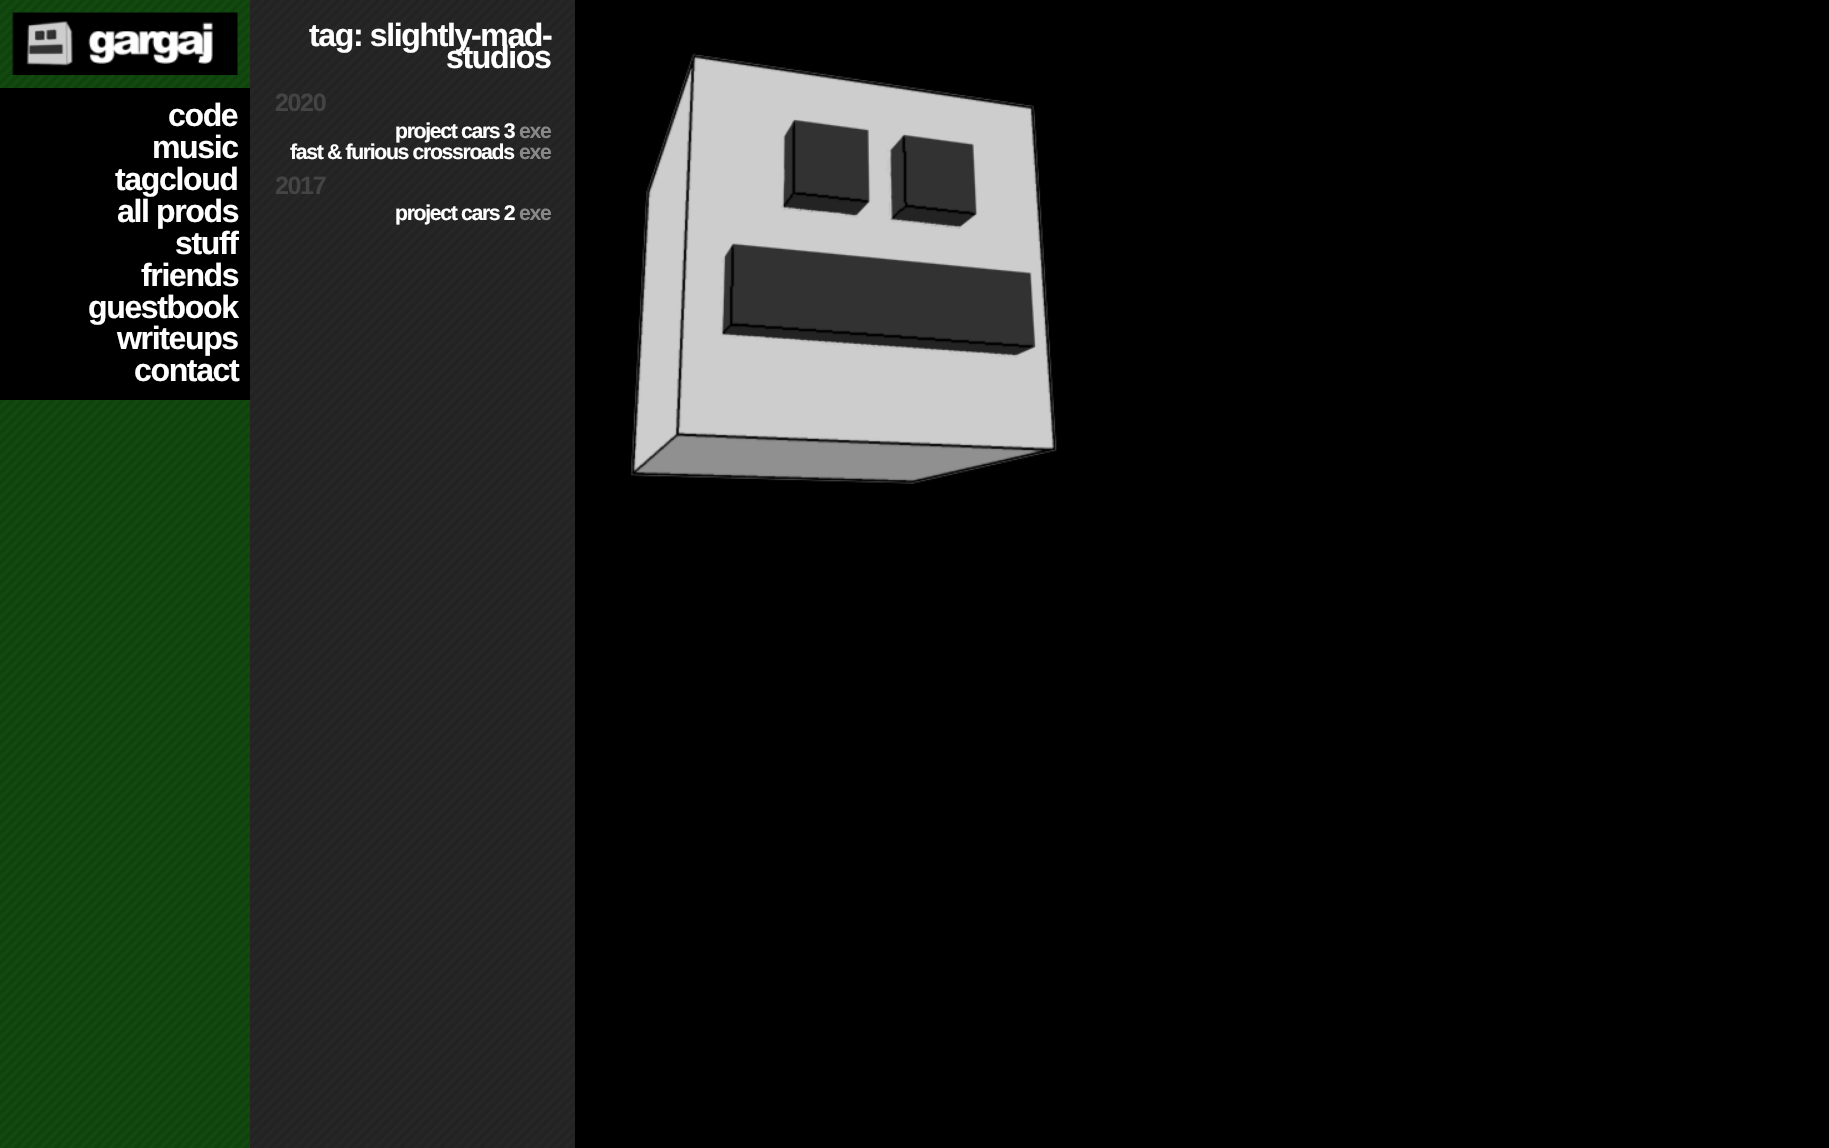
#include "include/core/SkBlurTypes.h"
#include "include/core/SkCanvas.h"
#include "include/core/SkData.h"
#include "include/core/SkFont.h"
#include "include/core/SkFontMgr.h"
#include "include/core/SkImage.h"
#include "include/core/SkMaskFilter.h"
#include "include/core/SkPaint.h"
#include "include/core/SkPathBuilder.h"
#include "include/core/SkTextBlob.h"
#include "include/effects/SkDashPathEffect.h"
#include "include/effects/SkGradientShader.h"
#include "include/utils/SkParsePath.h"

extern sk_sp<SkFontMgr> fontMgr;

void draw(SkCanvas* canvas) {
  SkPaint p;
  p.setAntiAlias(true);
  auto spacedText = [&](const char* s, float x, float y, const SkFont& font, const SkPaint& ink, float letter, float word) {
    std::vector<SkGlyphID> glyphs(font.countText(s, strlen(s), SkTextEncoding::kUTF8));
    std::vector<float> xs(glyphs.size());
    font.textToGlyphs(s, strlen(s), SkTextEncoding::kUTF8, glyphs);
    font.getXPos(glyphs, xs, x);
    float extra = 0;
    for (size_t i = 0; i < glyphs.size(); i++) {
      xs[i] += extra;
      extra += letter + word * (glyphs[i] == font.unicharToGlyph(' '));
    }
    canvas->drawTextBlob(SkTextBlob::MakeFromPosHGlyphs(glyphs, xs, y, font), 0, 0, ink);
  };
  canvas->clear(SK_ColorBLACK);
  canvas->drawImageRect(SkImages::DeferredFromEncodedData(SkData::MakeFromFileName("images/1.png")), SkRect::MakeLTRB(0, 0, 250, 1148), SkSamplingOptions());
  canvas->drawImageRect(SkImages::DeferredFromEncodedData(SkData::MakeFromFileName("images/2.png")), SkRect::MakeLTRB(12, 12, 238, 75), SkSamplingOptions());
  p.setColor(SK_ColorBLACK);
  canvas->drawRect(SkRect::MakeLTRB(0, 88, 250, 400), p);
  canvas->drawImageRect(SkImages::DeferredFromEncodedData(SkData::MakeFromFileName("images/3.png")), SkRect::MakeLTRB(250, 0, 575, 1148), SkSamplingOptions());
  canvas->drawImageRect(SkImages::DeferredFromEncodedData(SkData::MakeFromFileName("images/4.png")), SkRect::MakeLTRB(630, 53, 1057, 484), SkSamplingOptions());
  SkFont font1(fontMgr->matchFamilyStyle("Liberation Sans", SkFontStyle::Bold()), 32);
  font1.setSubpixel(true);
  p.setColor(SK_ColorWHITE);
  spacedText("code", 168, 126, font1, p, -1.35f, 0);
  spacedText("music", 152, 158, font1, p, -1.35f, 0);
  spacedText("tagcloud", 115, 190, font1, p, -1.35f, 0);
  spacedText("all prods", 117, 222, font1, p, -1.35f, 0);
  spacedText("stuff", 175, 254, font1, p, -1.35f, 0);
  spacedText("friends", 141, 286, font1, p, -1.35f, 0);
  spacedText("guestbook", 88, 318, font1, p, -1.35f, 0);
  spacedText("writeups", 117, 349, font1, p, -1.35f, 0);
  spacedText("contact", 134, 381, font1, p, -1.35f, 0);
  spacedText("tag: slightly-mad-", 309, 46, font1, p, -1.35f, 0);
  spacedText("studios", 446, 68, font1, p, -1.35f, 0);
  SkFont font2(fontMgr->matchFamilyStyle("Liberation Sans", SkFontStyle::Bold()), 25);
  font2.setSubpixel(true);
  p.setColor(SkColorSetRGB(68, 68, 68));
  spacedText("2020", 275, 111, font2, p, -1.35f, 0);
  SkFont font3(fontMgr->matchFamilyStyle("Liberation Sans", SkFontStyle::Bold()), 21.25f);
  font3.setSubpixel(true);
  p.setColor(SK_ColorWHITE);
  spacedText("project cars 3", 395, 138, font3, p, -1.35f, 0);
  p.setColor(SkColorSetRGB(136, 136, 136));
  spacedText("exe", 519, 138, font3, p, -1.35f, 0);
  p.setColor(SK_ColorWHITE);
  spacedText("fast & furious crossroads", 290, 159, font3, p, -1.35f, 0);
  p.setColor(SkColorSetRGB(136, 136, 136));
  spacedText("exe", 519, 159, font3, p, -1.35f, 0);
  p.setColor(SkColorSetRGB(68, 68, 68));
  spacedText("2017", 275, 194, font2, p, -1.35f, 0);
  p.setColor(SK_ColorWHITE);
  spacedText("project cars 2", 395, 220, font3, p, -1.35f, 0);
  p.setColor(SkColorSetRGB(136, 136, 136));
  spacedText("exe", 519, 220, font3, p, -1.35f, 0);
}
